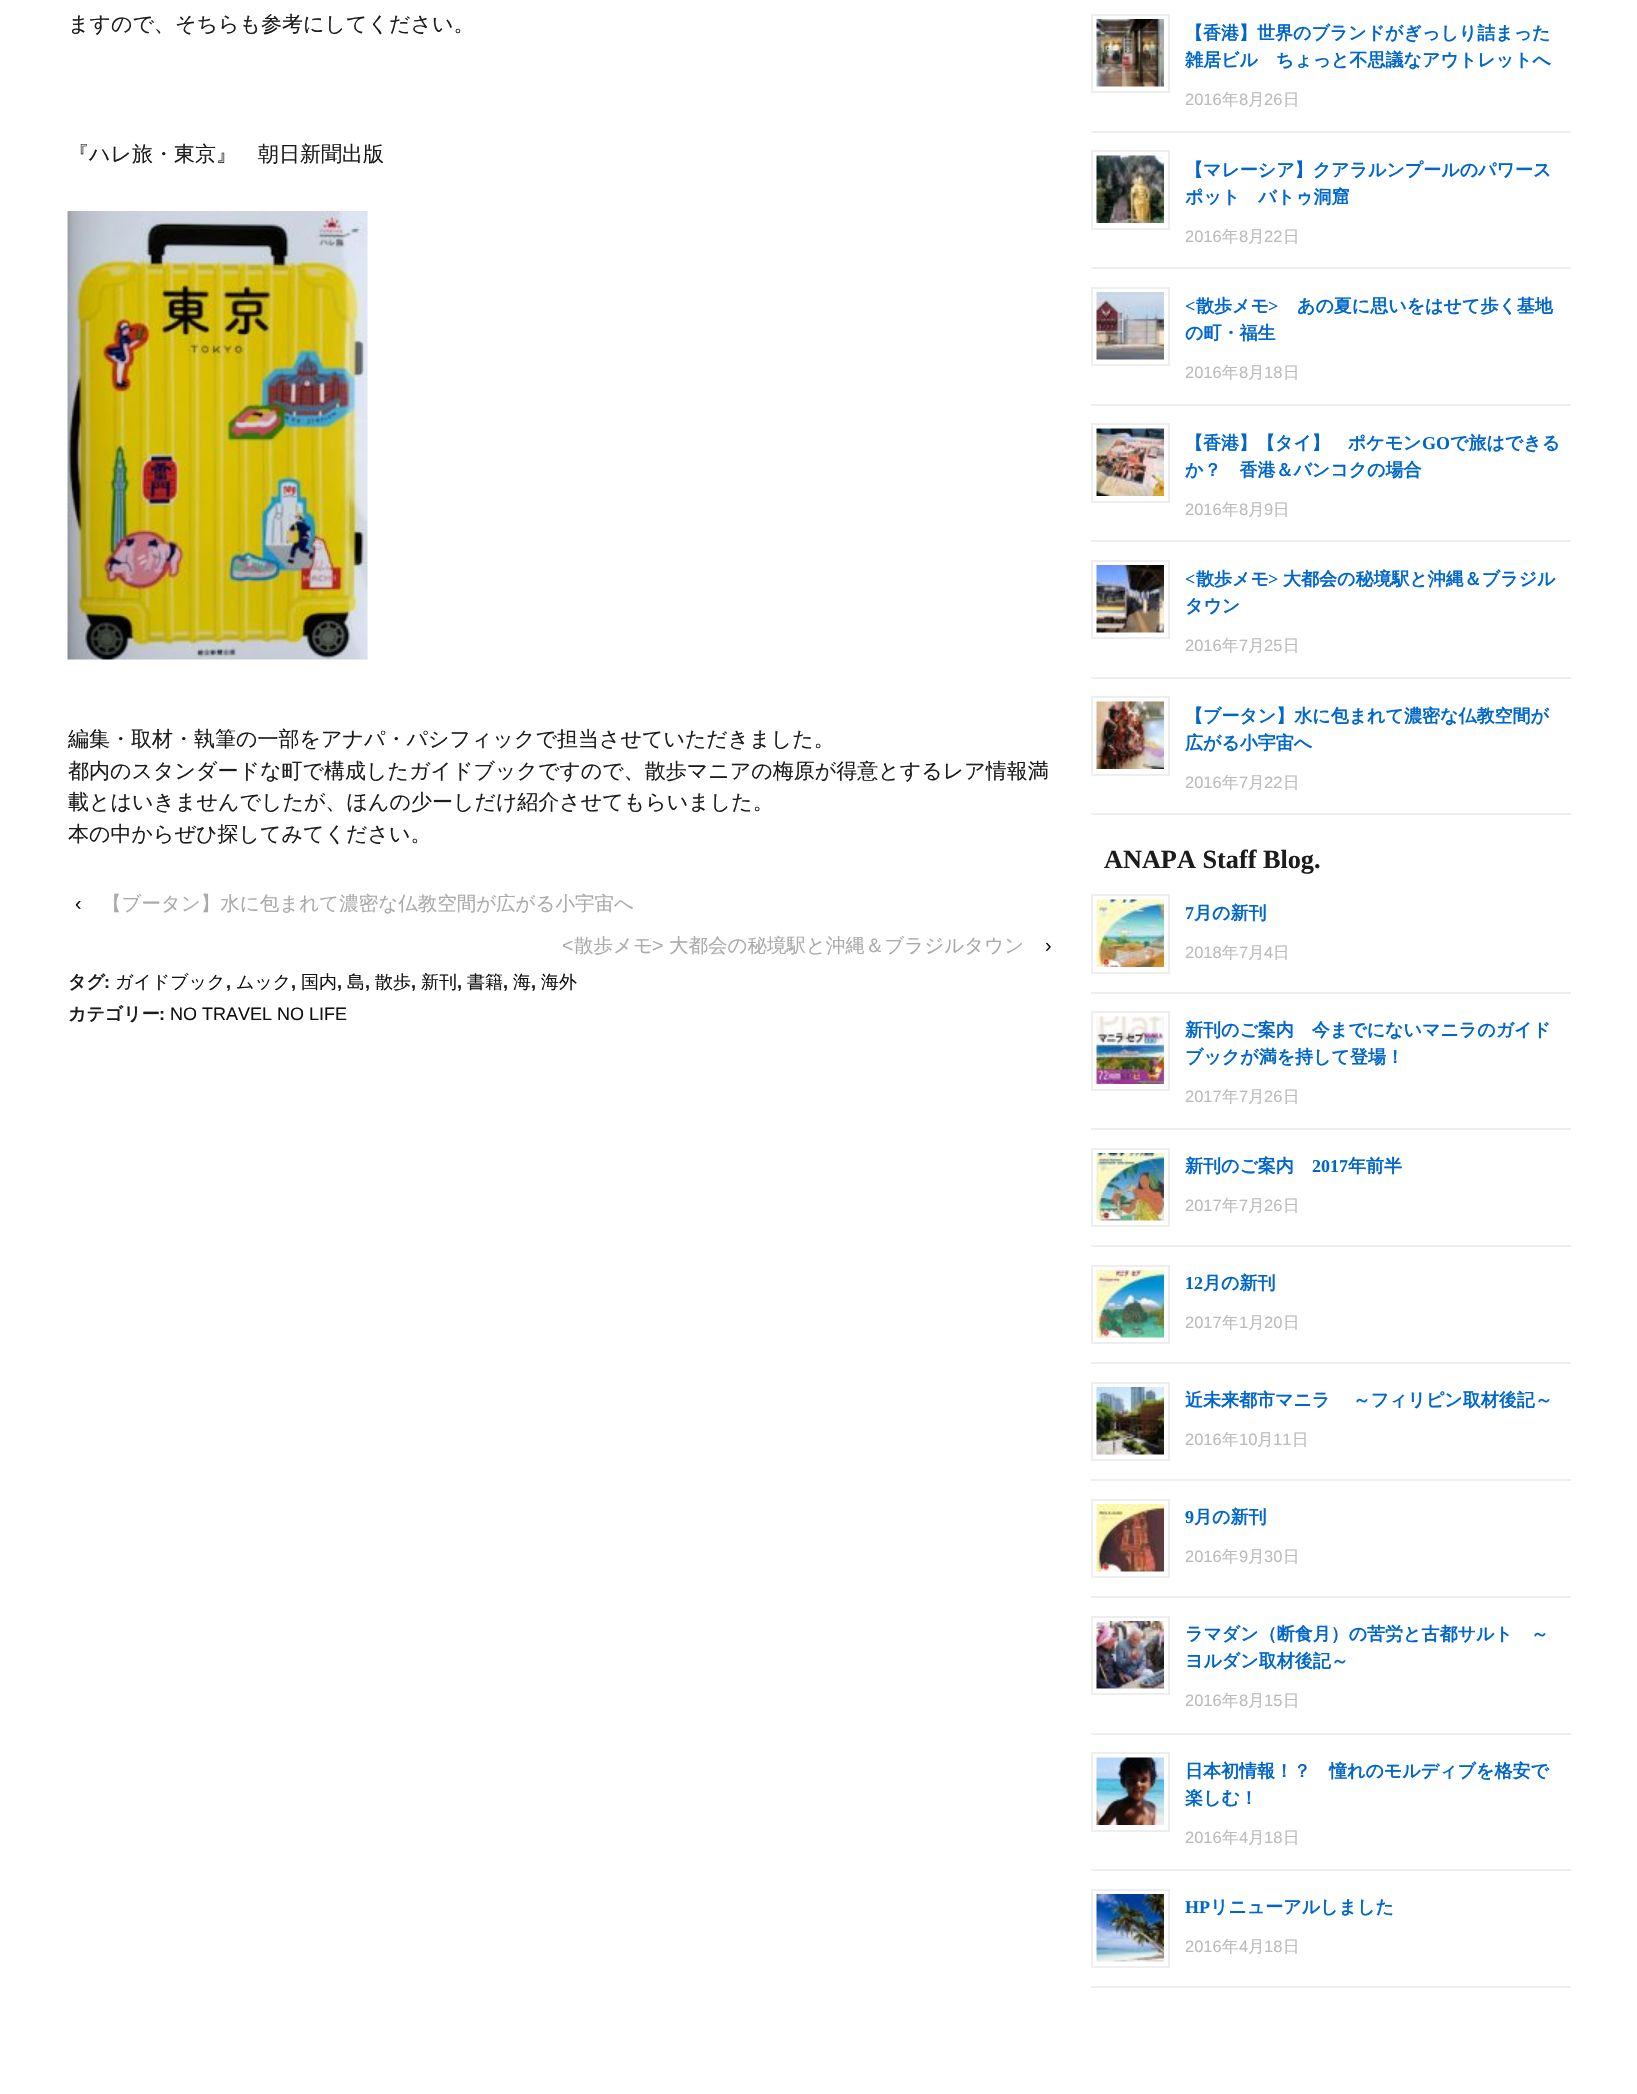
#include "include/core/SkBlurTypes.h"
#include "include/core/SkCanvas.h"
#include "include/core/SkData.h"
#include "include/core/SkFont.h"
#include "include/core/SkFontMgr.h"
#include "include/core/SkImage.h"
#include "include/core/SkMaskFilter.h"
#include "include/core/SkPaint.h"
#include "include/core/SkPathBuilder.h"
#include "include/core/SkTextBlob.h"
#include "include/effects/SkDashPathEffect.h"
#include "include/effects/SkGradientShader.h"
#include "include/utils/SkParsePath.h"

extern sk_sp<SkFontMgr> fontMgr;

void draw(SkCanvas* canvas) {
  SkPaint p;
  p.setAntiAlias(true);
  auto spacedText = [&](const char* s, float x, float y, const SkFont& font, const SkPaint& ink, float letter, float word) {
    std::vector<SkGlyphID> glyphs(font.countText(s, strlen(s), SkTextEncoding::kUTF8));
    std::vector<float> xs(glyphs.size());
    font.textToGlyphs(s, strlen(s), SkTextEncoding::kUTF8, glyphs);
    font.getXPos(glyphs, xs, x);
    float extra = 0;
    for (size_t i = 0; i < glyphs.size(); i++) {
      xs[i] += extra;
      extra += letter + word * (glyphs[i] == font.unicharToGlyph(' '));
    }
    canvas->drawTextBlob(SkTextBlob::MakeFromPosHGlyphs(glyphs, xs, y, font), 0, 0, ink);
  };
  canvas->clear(SK_ColorWHITE);
  canvas->drawImageRect(SkImages::DeferredFromEncodedData(SkData::MakeFromFileName("images/1.png")), SkRect::MakeLTRB(67, 211, 368, 660), SkSamplingOptions());
  p.setColor(SkColorSetRGB(238, 238, 238));
  canvas->drawRect(SkRect::MakeLTRB(1091, 131, 1571, 133), p);
  p.setStyle(SkPaint::kStroke_Style);
  p.setStrokeWidth(2);
  canvas->drawRect(SkRect::MakeLTRB(1092, 15, 1169, 92), p);
  canvas->drawImageRect(SkImages::DeferredFromEncodedData(SkData::MakeFromFileName("images/2.png")), SkRect::MakeLTRB(1096, 19, 1164, 87), SkSamplingOptions());
  p.setStyle(SkPaint::kFill_Style);
  canvas->drawRect(SkRect::MakeLTRB(1091, 267, 1571, 269), p);
  p.setStyle(SkPaint::kStroke_Style);
  canvas->drawRect(SkRect::MakeLTRB(1092, 151, 1169, 229), p);
  canvas->drawImageRect(SkImages::DeferredFromEncodedData(SkData::MakeFromFileName("images/3.png")), SkRect::MakeLTRB(1096, 155, 1164, 223), SkSamplingOptions());
  p.setStyle(SkPaint::kFill_Style);
  canvas->drawRect(SkRect::MakeLTRB(1091, 404, 1571, 406), p);
  p.setStyle(SkPaint::kStroke_Style);
  canvas->drawRect(SkRect::MakeLTRB(1092, 288, 1169, 365), p);
  canvas->drawImageRect(SkImages::DeferredFromEncodedData(SkData::MakeFromFileName("images/4.png")), SkRect::MakeLTRB(1096, 292, 1164, 360), SkSamplingOptions());
  p.setStyle(SkPaint::kFill_Style);
  canvas->drawRect(SkRect::MakeLTRB(1091, 540, 1571, 542), p);
  p.setStyle(SkPaint::kStroke_Style);
  canvas->drawRect(SkRect::MakeLTRB(1092, 424, 1169, 502), p);
  canvas->drawImageRect(SkImages::DeferredFromEncodedData(SkData::MakeFromFileName("images/5.png")), SkRect::MakeLTRB(1096, 428, 1164, 496), SkSamplingOptions());
  p.setStyle(SkPaint::kFill_Style);
  canvas->drawRect(SkRect::MakeLTRB(1091, 677, 1571, 679), p);
  p.setStyle(SkPaint::kStroke_Style);
  canvas->drawRect(SkRect::MakeLTRB(1092, 561, 1169, 638), p);
  canvas->drawImageRect(SkImages::DeferredFromEncodedData(SkData::MakeFromFileName("images/6.png")), SkRect::MakeLTRB(1096, 565, 1164, 633), SkSamplingOptions());
  p.setStyle(SkPaint::kFill_Style);
  canvas->drawRect(SkRect::MakeLTRB(1091, 813, 1571, 815), p);
  p.setStyle(SkPaint::kStroke_Style);
  canvas->drawRect(SkRect::MakeLTRB(1092, 697, 1169, 775), p);
  canvas->drawImageRect(SkImages::DeferredFromEncodedData(SkData::MakeFromFileName("images/7.png")), SkRect::MakeLTRB(1096, 701, 1164, 769), SkSamplingOptions());
  p.setStyle(SkPaint::kFill_Style);
  canvas->drawRect(SkRect::MakeLTRB(1091, 992, 1571, 994), p);
  p.setStyle(SkPaint::kStroke_Style);
  canvas->drawRect(SkRect::MakeLTRB(1092, 895, 1169, 973), p);
  canvas->drawImageRect(SkImages::DeferredFromEncodedData(SkData::MakeFromFileName("images/8.png")), SkRect::MakeLTRB(1096, 899, 1164, 967), SkSamplingOptions());
  p.setStyle(SkPaint::kFill_Style);
  canvas->drawRect(SkRect::MakeLTRB(1091, 1128, 1571, 1130), p);
  p.setStyle(SkPaint::kStroke_Style);
  canvas->drawRect(SkRect::MakeLTRB(1092, 1012, 1169, 1090), p);
  canvas->drawImageRect(SkImages::DeferredFromEncodedData(SkData::MakeFromFileName("images/9.png")), SkRect::MakeLTRB(1096, 1016, 1164, 1084), SkSamplingOptions());
  p.setStyle(SkPaint::kFill_Style);
  canvas->drawRect(SkRect::MakeLTRB(1091, 1245, 1571, 1247), p);
  p.setStyle(SkPaint::kStroke_Style);
  canvas->drawRect(SkRect::MakeLTRB(1092, 1149, 1169, 1226), p);
  canvas->drawImageRect(SkImages::DeferredFromEncodedData(SkData::MakeFromFileName("images/10.png")), SkRect::MakeLTRB(1096, 1153, 1164, 1221), SkSamplingOptions());
  p.setStyle(SkPaint::kFill_Style);
  canvas->drawRect(SkRect::MakeLTRB(1091, 1362, 1571, 1364), p);
  p.setStyle(SkPaint::kStroke_Style);
  canvas->drawRect(SkRect::MakeLTRB(1092, 1266, 1169, 1343), p);
  canvas->drawImageRect(SkImages::DeferredFromEncodedData(SkData::MakeFromFileName("images/11.png")), SkRect::MakeLTRB(1096, 1270, 1164, 1338), SkSamplingOptions());
  p.setStyle(SkPaint::kFill_Style);
  canvas->drawRect(SkRect::MakeLTRB(1091, 1479, 1571, 1481), p);
  p.setStyle(SkPaint::kStroke_Style);
  canvas->drawRect(SkRect::MakeLTRB(1092, 1383, 1169, 1460), p);
  canvas->drawImageRect(SkImages::DeferredFromEncodedData(SkData::MakeFromFileName("images/12.png")), SkRect::MakeLTRB(1096, 1387, 1164, 1455), SkSamplingOptions());
  p.setStyle(SkPaint::kFill_Style);
  canvas->drawRect(SkRect::MakeLTRB(1091, 1596, 1571, 1598), p);
  p.setStyle(SkPaint::kStroke_Style);
  canvas->drawRect(SkRect::MakeLTRB(1092, 1500, 1169, 1577), p);
  canvas->drawImageRect(SkImages::DeferredFromEncodedData(SkData::MakeFromFileName("images/13.png")), SkRect::MakeLTRB(1096, 1504, 1164, 1572), SkSamplingOptions());
  p.setStyle(SkPaint::kFill_Style);
  canvas->drawRect(SkRect::MakeLTRB(1091, 1733, 1571, 1735), p);
  p.setStyle(SkPaint::kStroke_Style);
  canvas->drawRect(SkRect::MakeLTRB(1092, 1617, 1169, 1694), p);
  canvas->drawImageRect(SkImages::DeferredFromEncodedData(SkData::MakeFromFileName("images/14.png")), SkRect::MakeLTRB(1096, 1621, 1164, 1689), SkSamplingOptions());
  p.setStyle(SkPaint::kFill_Style);
  canvas->drawRect(SkRect::MakeLTRB(1091, 1869, 1571, 1871), p);
  p.setStyle(SkPaint::kStroke_Style);
  canvas->drawRect(SkRect::MakeLTRB(1092, 1753, 1169, 1831), p);
  canvas->drawImageRect(SkImages::DeferredFromEncodedData(SkData::MakeFromFileName("images/15.png")), SkRect::MakeLTRB(1096, 1757, 1164, 1825), SkSamplingOptions());
  p.setStyle(SkPaint::kFill_Style);
  canvas->drawRect(SkRect::MakeLTRB(1091, 1986, 1571, 1988), p);
  p.setStyle(SkPaint::kStroke_Style);
  canvas->drawRect(SkRect::MakeLTRB(1092, 1890, 1169, 1967), p);
  canvas->drawImageRect(SkImages::DeferredFromEncodedData(SkData::MakeFromFileName("images/16.png")), SkRect::MakeLTRB(1096, 1894, 1164, 1962), SkSamplingOptions());
  SkFont font1(fontMgr->matchFamilyStyle("WenQuanYi Zen Hei", SkFontStyle(500, SkFontStyle::kNormal_Width, SkFontStyle::kUpright_Slant)), 21);
  font1.setSubpixel(true);
  p.setStyle(SkPaint::kFill_Style);
  p.setColor(SkColorSetRGB(28, 28, 28));
  canvas->drawString("ますので、そちらも参考にしてください。", 68, 31, font1, p);
  canvas->drawString("『ハレ旅・東京』　朝日新聞出版", 68, 161, font1, p);
  canvas->drawString("編集・取材・執筆の一部をアナパ・パシフィックで担当させていただきました。", 68, 746, font1, p);
  canvas->drawString("都内のスタンダードな町で構成したガイドブックですので、散歩マニアの梅原が得意とするレア情報満", 68, 778, font1, p);
  canvas->drawString("載とはいきませんでしたが、ほんの少ーしだけ紹介させてもらいました。", 68, 809, font1, p);
  canvas->drawString("本の中からぜひ探してみてください。", 68, 841, font1, p);
  SkFont font2(fontMgr->matchFamilyStyle("Liberation Sans", SkFontStyle::Normal()), 19.5f);
  font2.setSubpixel(true);
  p.setColor(SkColorSetRGB(17, 17, 17));
  canvas->drawString("‹", 75, 910, font2, p);
  SkFont font3(fontMgr->matchFamilyStyle("WenQuanYi Zen Hei", SkFontStyle(500, SkFontStyle::kNormal_Width, SkFontStyle::kUpright_Slant)), 19.5f);
  font3.setSubpixel(true);
  p.setColor(SkColorSetRGB(170, 170, 170));
  canvas->drawString("【ブータン】水に包まれて濃密な仏教空間が広がる小宇宙へ", 102, 910, font3, p);
  canvas->drawString("<", 562, 952, font2, p);
  canvas->drawString("散歩メモ", 574, 952, font3, p);
  canvas->drawString(">", 652, 952, font2, p);
  canvas->drawString("大都会の秘境駅と沖縄＆ブラジルタウン", 669, 952, font3, p);
  p.setColor(SkColorSetRGB(17, 17, 17));
  canvas->drawString("›", 1045, 952, font2, p);
  SkFont font4(fontMgr->matchFamilyStyle("WenQuanYi Zen Hei", SkFontStyle::Bold()), 18);
  font4.setSubpixel(true);
  p.setColor(SkColorSetRGB(28, 28, 28));
  canvas->drawString("タグ", 68, 988, font4, p);
  SkFont font5(fontMgr->matchFamilyStyle("Liberation Sans", SkFontStyle::Bold()), 18);
  font5.setSubpixel(true);
  canvas->drawString(":", 104, 988, font5, p);
  SkFont font6(fontMgr->matchFamilyStyle("WenQuanYi Zen Hei", SkFontStyle(500, SkFontStyle::kNormal_Width, SkFontStyle::kUpright_Slant)), 18);
  font6.setSubpixel(true);
  p.setColor(SkColorSetRGB(17, 17, 17));
  canvas->drawString("ガイドブック", 115, 988, font6, p);
  p.setColor(SkColorSetRGB(28, 28, 28));
  canvas->drawString(",", 226, 988, font5, p);
  p.setColor(SkColorSetRGB(17, 17, 17));
  canvas->drawString("ムック", 236, 988, font6, p);
  p.setColor(SkColorSetRGB(28, 28, 28));
  canvas->drawString(",", 291, 988, font5, p);
  p.setColor(SkColorSetRGB(17, 17, 17));
  canvas->drawString("国内", 301, 988, font6, p);
  p.setColor(SkColorSetRGB(28, 28, 28));
  canvas->drawString(",", 337, 988, font5, p);
  p.setColor(SkColorSetRGB(17, 17, 17));
  canvas->drawString("島", 347, 988, font6, p);
  p.setColor(SkColorSetRGB(28, 28, 28));
  canvas->drawString(",", 365, 988, font5, p);
  p.setColor(SkColorSetRGB(17, 17, 17));
  canvas->drawString("散歩", 375, 988, font6, p);
  p.setColor(SkColorSetRGB(28, 28, 28));
  canvas->drawString(",", 411, 988, font5, p);
  p.setColor(SkColorSetRGB(17, 17, 17));
  canvas->drawString("新刊", 421, 988, font6, p);
  p.setColor(SkColorSetRGB(28, 28, 28));
  canvas->drawString(",", 457, 988, font5, p);
  p.setColor(SkColorSetRGB(17, 17, 17));
  canvas->drawString("書籍", 467, 988, font6, p);
  p.setColor(SkColorSetRGB(28, 28, 28));
  canvas->drawString(",", 503, 988, font5, p);
  p.setColor(SkColorSetRGB(17, 17, 17));
  canvas->drawString("海", 513, 988, font6, p);
  p.setColor(SkColorSetRGB(28, 28, 28));
  canvas->drawString(",", 531, 988, font5, p);
  p.setColor(SkColorSetRGB(17, 17, 17));
  canvas->drawString("海外", 541, 988, font6, p);
  p.setColor(SkColorSetRGB(28, 28, 28));
  canvas->drawString("カテゴリー", 68, 1020, font4, p);
  canvas->drawString(":", 159, 1020, font5, p);
  SkFont font7(fontMgr->matchFamilyStyle("Liberation Sans", SkFontStyle::Normal()), 18);
  font7.setSubpixel(true);
  p.setColor(SkColorSetRGB(17, 17, 17));
  canvas->drawString("NO TRAVEL NO LIFE", 170, 1020, font7, p);
  p.setColor(SkColorSetRGB(0, 102, 204));
  canvas->drawString("【香港】世界のブランドがぎっしり詰まった", 1185, 39, font4, p);
  canvas->drawString("雑居ビル　ちょっと不思議なアウトレットへ", 1185, 66, font4, p);
  SkFont font8(fontMgr->matchFamilyStyle("Liberation Sans", SkFontStyle::Normal()), 16.5f);
  font8.setSubpixel(true);
  p.setColor(SkColorSetRGB(187, 187, 187));
  canvas->drawString("2016", 1185, 105, font8, p);
  SkFont font9(fontMgr->matchFamilyStyle("WenQuanYi Zen Hei", SkFontStyle(500, SkFontStyle::kNormal_Width, SkFontStyle::kUpright_Slant)), 16.5f);
  font9.setSubpixel(true);
  canvas->drawString("年", 1222, 105, font9, p);
  canvas->drawString("8", 1239, 105, font8, p);
  canvas->drawString("月", 1248, 105, font9, p);
  canvas->drawString("26", 1264, 105, font8, p);
  canvas->drawString("日", 1283, 105, font9, p);
  p.setColor(SkColorSetRGB(0, 102, 204));
  canvas->drawString("【マレーシア】クアラルンプールのパワース", 1185, 176, font4, p);
  canvas->drawString("ポット　バトゥ洞窟", 1185, 203, font4, p);
  p.setColor(SkColorSetRGB(187, 187, 187));
  canvas->drawString("2016", 1185, 242, font8, p);
  canvas->drawString("年", 1222, 242, font9, p);
  canvas->drawString("8", 1239, 242, font8, p);
  canvas->drawString("月", 1248, 242, font9, p);
  canvas->drawString("22", 1264, 242, font8, p);
  canvas->drawString("日", 1283, 242, font9, p);
  SkFont font10(fontMgr->matchFamilyStyle("Liberation Serif", SkFontStyle::Bold()), 18);
  font10.setSubpixel(true);
  p.setColor(SkColorSetRGB(0, 102, 204));
  canvas->drawString("<", 1185, 312, font10, p);
  canvas->drawString("散歩メモ", 1196, 312, font4, p);
  canvas->drawString(">", 1268, 312, font10, p);
  canvas->drawString("あの夏に思いをはせて歩く基地", 1297, 312, font4, p);
  canvas->drawString("の町・福生", 1185, 339, font4, p);
  p.setColor(SkColorSetRGB(187, 187, 187));
  canvas->drawString("2016", 1185, 378, font8, p);
  canvas->drawString("年", 1222, 378, font9, p);
  canvas->drawString("8", 1239, 378, font8, p);
  canvas->drawString("月", 1248, 378, font9, p);
  canvas->drawString("18", 1264, 378, font8, p);
  canvas->drawString("日", 1283, 378, font9, p);
  p.setColor(SkColorSetRGB(0, 102, 204));
  canvas->drawString("【香港】【タイ】　ポケモン", 1185, 449, font4, p);
  canvas->drawString("GO", 1422, 449, font10, p);
  canvas->drawString("で旅はできる", 1450, 449, font4, p);
  canvas->drawString("か？　香港＆バンコクの場合", 1185, 476, font4, p);
  p.setColor(SkColorSetRGB(187, 187, 187));
  canvas->drawString("2016", 1185, 515, font8, p);
  canvas->drawString("年", 1222, 515, font9, p);
  canvas->drawString("8", 1239, 515, font8, p);
  canvas->drawString("月", 1248, 515, font9, p);
  canvas->drawString("9", 1264, 515, font8, p);
  canvas->drawString("日", 1273, 515, font9, p);
  p.setColor(SkColorSetRGB(0, 102, 204));
  canvas->drawString("<", 1185, 585, font10, p);
  canvas->drawString("散歩メモ", 1196, 585, font4, p);
  canvas->drawString(">", 1268, 585, font10, p);
  canvas->drawString("大都会の秘境駅と沖縄＆ブラジル", 1283, 585, font4, p);
  canvas->drawString("タウン", 1185, 612, font4, p);
  p.setColor(SkColorSetRGB(187, 187, 187));
  canvas->drawString("2016", 1185, 651, font8, p);
  canvas->drawString("年", 1222, 651, font9, p);
  canvas->drawString("7", 1239, 651, font8, p);
  canvas->drawString("月", 1248, 651, font9, p);
  canvas->drawString("25", 1264, 651, font8, p);
  canvas->drawString("日", 1283, 651, font9, p);
  p.setColor(SkColorSetRGB(0, 102, 204));
  canvas->drawString("【ブータン】水に包まれて濃密な仏教空間が", 1185, 722, font4, p);
  canvas->drawString("広がる小宇宙へ", 1185, 749, font4, p);
  p.setColor(SkColorSetRGB(187, 187, 187));
  canvas->drawString("2016", 1185, 788, font8, p);
  canvas->drawString("年", 1222, 788, font9, p);
  canvas->drawString("7", 1239, 788, font8, p);
  canvas->drawString("月", 1248, 788, font9, p);
  canvas->drawString("22", 1264, 788, font8, p);
  canvas->drawString("日", 1283, 788, font9, p);
  SkFont font11(fontMgr->matchFamilyStyle("Liberation Serif", SkFontStyle::Bold()), 26.25f);
  font11.setSubpixel(true);
  p.setColor(SkColorSetRGB(28, 28, 28));
  canvas->drawString("ANAPA Staff Blog.", 1104, 868, font11, p);
  p.setColor(SkColorSetRGB(0, 102, 204));
  canvas->drawString("7", 1185, 919, font10, p);
  canvas->drawString("月の新刊", 1194, 919, font4, p);
  p.setColor(SkColorSetRGB(187, 187, 187));
  canvas->drawString("2018", 1185, 958, font8, p);
  canvas->drawString("年", 1222, 958, font9, p);
  canvas->drawString("7", 1239, 958, font8, p);
  canvas->drawString("月", 1248, 958, font9, p);
  canvas->drawString("4", 1264, 958, font8, p);
  canvas->drawString("日", 1273, 958, font9, p);
  p.setColor(SkColorSetRGB(0, 102, 204));
  canvas->drawString("新刊のご案内　今までにないマニラのガイド", 1185, 1036, font4, p);
  canvas->drawString("ブックが満を持して登場！", 1185, 1063, font4, p);
  p.setColor(SkColorSetRGB(187, 187, 187));
  canvas->drawString("2017", 1185, 1102, font8, p);
  canvas->drawString("年", 1222, 1102, font9, p);
  canvas->drawString("7", 1239, 1102, font8, p);
  canvas->drawString("月", 1248, 1102, font9, p);
  canvas->drawString("26", 1264, 1102, font8, p);
  canvas->drawString("日", 1283, 1102, font9, p);
  p.setColor(SkColorSetRGB(0, 102, 204));
  canvas->drawString("新刊のご案内", 1185, 1172, font4, p);
  canvas->drawString("2017", 1312, 1172, font10, p);
  canvas->drawString("年前半", 1348, 1172, font4, p);
  p.setColor(SkColorSetRGB(187, 187, 187));
  canvas->drawString("2017", 1185, 1211, font8, p);
  canvas->drawString("年", 1222, 1211, font9, p);
  canvas->drawString("7", 1239, 1211, font8, p);
  canvas->drawString("月", 1248, 1211, font9, p);
  canvas->drawString("26", 1264, 1211, font8, p);
  canvas->drawString("日", 1283, 1211, font9, p);
  p.setColor(SkColorSetRGB(0, 102, 204));
  canvas->drawString("12", 1185, 1289, font10, p);
  canvas->drawString("月の新刊", 1203, 1289, font4, p);
  p.setColor(SkColorSetRGB(187, 187, 187));
  canvas->drawString("2017", 1185, 1328, font8, p);
  canvas->drawString("年", 1222, 1328, font9, p);
  canvas->drawString("1", 1239, 1328, font8, p);
  canvas->drawString("月", 1248, 1328, font9, p);
  canvas->drawString("20", 1264, 1328, font8, p);
  canvas->drawString("日", 1283, 1328, font9, p);
  p.setColor(SkColorSetRGB(0, 102, 204));
  spacedText("近未来都市マニラ　 ～フィリピン取材後記～", 1185, 1406, font4, p, 0, -1);
  p.setColor(SkColorSetRGB(187, 187, 187));
  canvas->drawString("2016", 1185, 1445, font8, p);
  canvas->drawString("年", 1222, 1445, font9, p);
  canvas->drawString("10", 1239, 1445, font8, p);
  canvas->drawString("月", 1257, 1445, font9, p);
  canvas->drawString("11", 1273, 1445, font8, p);
  canvas->drawString("日", 1292, 1445, font9, p);
  p.setColor(SkColorSetRGB(0, 102, 204));
  canvas->drawString("9", 1185, 1523, font10, p);
  canvas->drawString("月の新刊", 1194, 1523, font4, p);
  p.setColor(SkColorSetRGB(187, 187, 187));
  canvas->drawString("2016", 1185, 1562, font8, p);
  canvas->drawString("年", 1222, 1562, font9, p);
  canvas->drawString("9", 1239, 1562, font8, p);
  canvas->drawString("月", 1248, 1562, font9, p);
  canvas->drawString("30", 1264, 1562, font8, p);
  canvas->drawString("日", 1283, 1562, font9, p);
  p.setColor(SkColorSetRGB(0, 102, 204));
  canvas->drawString("ラマダン（断食月）の苦労と古都サルト　～", 1185, 1640, font4, p);
  canvas->drawString("ヨルダン取材後記～", 1185, 1667, font4, p);
  p.setColor(SkColorSetRGB(187, 187, 187));
  canvas->drawString("2016", 1185, 1706, font8, p);
  canvas->drawString("年", 1222, 1706, font9, p);
  canvas->drawString("8", 1239, 1706, font8, p);
  canvas->drawString("月", 1248, 1706, font9, p);
  canvas->drawString("15", 1264, 1706, font8, p);
  canvas->drawString("日", 1283, 1706, font9, p);
  p.setColor(SkColorSetRGB(0, 102, 204));
  canvas->drawString("日本初情報！？　憧れのモルディブを格安で", 1185, 1777, font4, p);
  canvas->drawString("楽しむ！", 1185, 1804, font4, p);
  p.setColor(SkColorSetRGB(187, 187, 187));
  canvas->drawString("2016", 1185, 1843, font8, p);
  canvas->drawString("年", 1222, 1843, font9, p);
  canvas->drawString("4", 1239, 1843, font8, p);
  canvas->drawString("月", 1248, 1843, font9, p);
  canvas->drawString("18", 1264, 1843, font8, p);
  canvas->drawString("日", 1283, 1843, font9, p);
  p.setColor(SkColorSetRGB(0, 102, 204));
  canvas->drawString("HP", 1185, 1913, font10, p);
  canvas->drawString("リニューアルしました", 1210, 1913, font4, p);
  p.setColor(SkColorSetRGB(187, 187, 187));
  canvas->drawString("2016", 1185, 1952, font8, p);
  canvas->drawString("年", 1222, 1952, font9, p);
  canvas->drawString("4", 1239, 1952, font8, p);
  canvas->drawString("月", 1248, 1952, font9, p);
  canvas->drawString("18", 1264, 1952, font8, p);
  canvas->drawString("日", 1283, 1952, font9, p);
}
